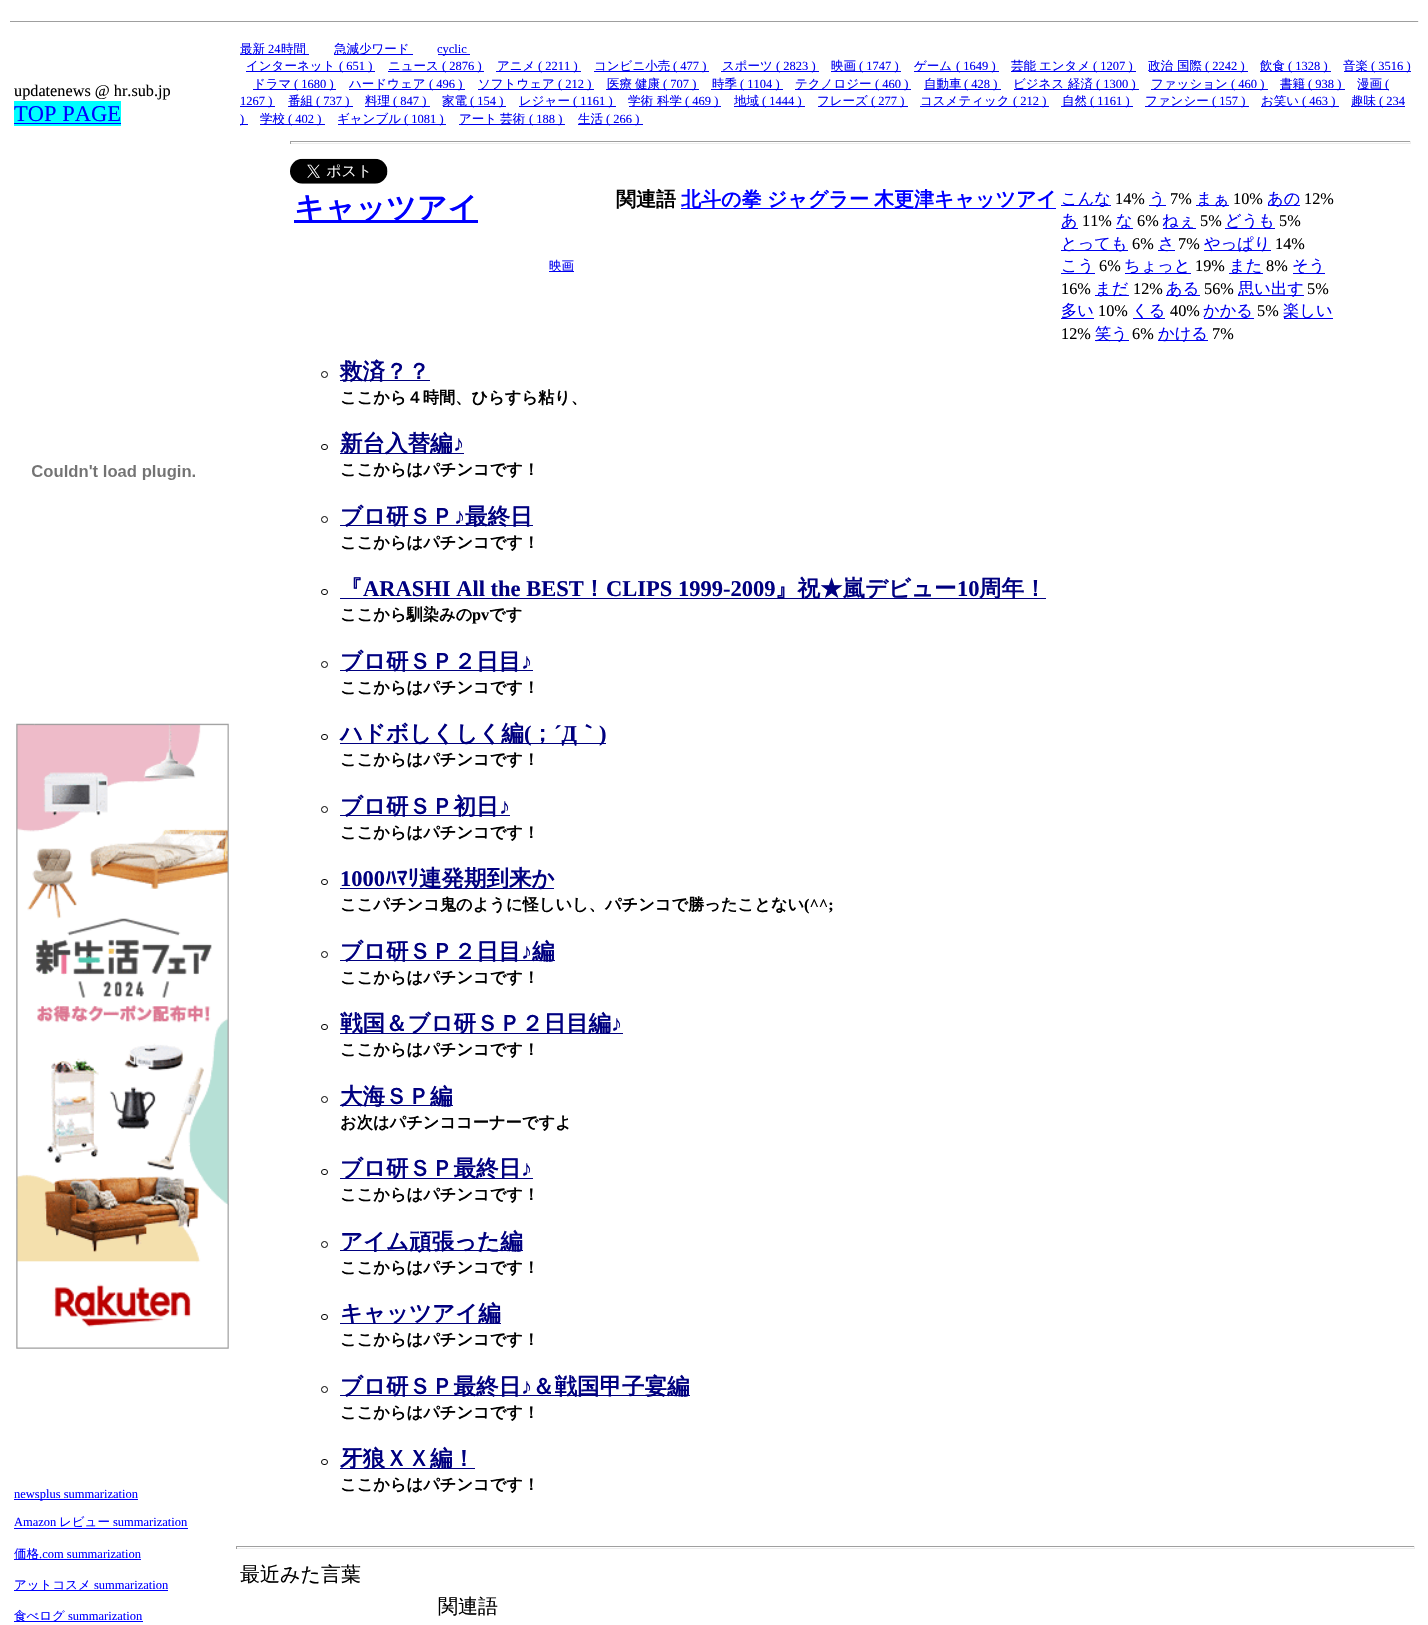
#include "include/core/SkBlurTypes.h"
#include "include/core/SkCanvas.h"
#include "include/core/SkData.h"
#include "include/core/SkFont.h"
#include "include/core/SkFontMgr.h"
#include "include/core/SkImage.h"
#include "include/core/SkMaskFilter.h"
#include "include/core/SkPaint.h"
#include "include/core/SkPathBuilder.h"
#include "include/core/SkTextBlob.h"
#include "include/effects/SkDashPathEffect.h"
#include "include/effects/SkGradientShader.h"
#include "include/utils/SkParsePath.h"

extern sk_sp<SkFontMgr> fontMgr;

void draw(SkCanvas* canvas) {
  SkPaint p;
  p.setAntiAlias(true);
  canvas->clear(SK_ColorWHITE);
  p.setColor(SkColorSetRGB(159, 159, 159));
  canvas->drawRect(SkRect::MakeLTRB(10, 21, 1419, 22), p);
  p.setColor(SkColorSetRGB(238, 238, 238));
  canvas->drawRect(SkRect::MakeLTRB(1418, 21, 1419, 22), p);
  p.setColor(SkColorSetRGB(0, 255, 255));
  canvas->drawRect(SkRect::MakeLTRB(14, 101, 121, 126), p);
  p.setColor(SkColorSetRGB(0, 0, 255));
  canvas->drawRect(SkRect::MakeLTRB(14, 123, 121, 124), p);
  canvas->drawImageRect(SkImages::DeferredFromEncodedData(SkData::MakeFromFileName("images/1.png")), SkRect::MakeLTRB(32, 465, 195, 480), SkSamplingOptions());
  canvas->drawImageRect(SkImages::DeferredFromEncodedData(SkData::MakeFromFileName("images/2.png")), SkRect::MakeLTRB(16, 723, 229, 1349), SkSamplingOptions());
  canvas->drawRect(SkRect::MakeLTRB(14, 1499, 138, 1500), p);
  canvas->drawRect(SkRect::MakeLTRB(14, 1528, 188, 1529), p);
  canvas->drawRect(SkRect::MakeLTRB(14, 1559, 141, 1560), p);
  canvas->drawRect(SkRect::MakeLTRB(14, 1590, 168, 1591), p);
  canvas->drawRect(SkRect::MakeLTRB(14, 1621, 143, 1622), p);
  p.setColor(SkColorSetRGB(0, 0, 238));
  canvas->drawRect(SkRect::MakeLTRB(240, 54, 309, 55), p);
  canvas->drawRect(SkRect::MakeLTRB(334, 54, 413, 55), p);
  canvas->drawRect(SkRect::MakeLTRB(438, 54, 470, 55), p);
  canvas->drawRect(SkRect::MakeLTRB(246, 71, 375, 72), p);
  canvas->drawRect(SkRect::MakeLTRB(388, 71, 484, 72), p);
  canvas->drawRect(SkRect::MakeLTRB(496, 71, 581, 72), p);
  canvas->drawRect(SkRect::MakeLTRB(594, 71, 709, 72), p);
  canvas->drawRect(SkRect::MakeLTRB(721, 71, 819, 72), p);
  canvas->drawRect(SkRect::MakeLTRB(831, 71, 901, 72), p);
  canvas->drawRect(SkRect::MakeLTRB(914, 71, 999, 72), p);
  canvas->drawRect(SkRect::MakeLTRB(1011, 71, 1136, 72), p);
  canvas->drawRect(SkRect::MakeLTRB(1149, 71, 1248, 72), p);
  canvas->drawRect(SkRect::MakeLTRB(1260, 71, 1331, 72), p);
  canvas->drawRect(SkRect::MakeLTRB(1344, 71, 1411, 72), p);
  canvas->drawRect(SkRect::MakeLTRB(253, 89, 336, 90), p);
  canvas->drawRect(SkRect::MakeLTRB(349, 89, 465, 90), p);
  canvas->drawRect(SkRect::MakeLTRB(478, 89, 594, 90), p);
  canvas->drawRect(SkRect::MakeLTRB(606, 89, 699, 90), p);
  canvas->drawRect(SkRect::MakeLTRB(711, 89, 783, 90), p);
  canvas->drawRect(SkRect::MakeLTRB(795, 89, 911, 90), p);
  canvas->drawRect(SkRect::MakeLTRB(924, 89, 1001, 90), p);
  canvas->drawRect(SkRect::MakeLTRB(1014, 89, 1139, 90), p);
  canvas->drawRect(SkRect::MakeLTRB(1151, 89, 1268, 90), p);
  canvas->drawRect(SkRect::MakeLTRB(1280, 89, 1345, 90), p);
  canvas->drawRect(SkRect::MakeLTRB(1358, 89, 1389, 90), p);
  canvas->drawRect(SkRect::MakeLTRB(240, 106, 275, 107), p);
  canvas->drawRect(SkRect::MakeLTRB(288, 106, 353, 107), p);
  canvas->drawRect(SkRect::MakeLTRB(365, 106, 430, 107), p);
  canvas->drawRect(SkRect::MakeLTRB(443, 106, 506, 107), p);
  canvas->drawRect(SkRect::MakeLTRB(519, 106, 616, 107), p);
  canvas->drawRect(SkRect::MakeLTRB(629, 106, 721, 107), p);
  canvas->drawRect(SkRect::MakeLTRB(734, 106, 805, 107), p);
  canvas->drawRect(SkRect::MakeLTRB(818, 106, 908, 107), p);
  canvas->drawRect(SkRect::MakeLTRB(920, 106, 1049, 107), p);
  canvas->drawRect(SkRect::MakeLTRB(1061, 106, 1133, 107), p);
  canvas->drawRect(SkRect::MakeLTRB(1145, 106, 1249, 107), p);
  canvas->drawRect(SkRect::MakeLTRB(1261, 106, 1339, 107), p);
  canvas->drawRect(SkRect::MakeLTRB(1351, 106, 1405, 107), p);
  canvas->drawRect(SkRect::MakeLTRB(240, 124, 248, 125), p);
  canvas->drawRect(SkRect::MakeLTRB(260, 124, 325, 125), p);
  canvas->drawRect(SkRect::MakeLTRB(338, 124, 446, 125), p);
  canvas->drawRect(SkRect::MakeLTRB(459, 124, 565, 125), p);
  canvas->drawRect(SkRect::MakeLTRB(578, 124, 643, 125), p);
  p.setColor(SkColorSetRGB(159, 159, 159));
  canvas->drawRect(SkRect::MakeLTRB(290, 141, 1411, 142), p);
  p.setColor(SkColorSetRGB(238, 238, 238));
  canvas->drawRect(SkRect::MakeLTRB(1410, 141, 1411, 144), p);
  canvas->drawRect(SkRect::MakeLTRB(290, 143, 1411, 144), p);
  p.setColor(SkColorSetRGB(159, 159, 159));
  canvas->drawRect(SkRect::MakeLTRB(290, 141, 291, 144), p);
  canvas->drawImageRect(SkImages::DeferredFromEncodedData(SkData::MakeFromFileName("images/3.png")), SkRect::MakeLTRB(290, 158, 388, 184), SkSamplingOptions());
  p.setColor(SkColorSetRGB(0, 0, 255));
  canvas->drawRect(SkRect::MakeLTRB(294, 220, 478, 223), p);
  canvas->drawRect(SkRect::MakeLTRB(681, 208, 1056, 209), p);
  p.setColor(SkColorSetRGB(0, 0, 238));
  canvas->drawRect(SkRect::MakeLTRB(1061, 205, 1111, 206), p);
  canvas->drawRect(SkRect::MakeLTRB(1149, 205, 1166, 206), p);
  canvas->drawRect(SkRect::MakeLTRB(1196, 205, 1229, 206), p);
  canvas->drawRect(SkRect::MakeLTRB(1268, 205, 1300, 206), p);
  canvas->drawRect(SkRect::MakeLTRB(1061, 228, 1078, 229), p);
  canvas->drawRect(SkRect::MakeLTRB(1116, 228, 1133, 229), p);
  canvas->drawRect(SkRect::MakeLTRB(1163, 228, 1196, 229), p);
  canvas->drawRect(SkRect::MakeLTRB(1225, 228, 1275, 229), p);
  canvas->drawRect(SkRect::MakeLTRB(1061, 250, 1128, 251), p);
  canvas->drawRect(SkRect::MakeLTRB(1158, 250, 1175, 251), p);
  canvas->drawRect(SkRect::MakeLTRB(1204, 250, 1271, 251), p);
  canvas->drawRect(SkRect::MakeLTRB(1061, 273, 1095, 274), p);
  canvas->drawRect(SkRect::MakeLTRB(1125, 273, 1191, 274), p);
  canvas->drawRect(SkRect::MakeLTRB(1229, 273, 1263, 274), p);
  canvas->drawRect(SkRect::MakeLTRB(1293, 273, 1325, 274), p);
  canvas->drawRect(SkRect::MakeLTRB(1095, 295, 1129, 296), p);
  canvas->drawRect(SkRect::MakeLTRB(1166, 295, 1200, 296), p);
  canvas->drawRect(SkRect::MakeLTRB(1238, 295, 1304, 296), p);
  canvas->drawRect(SkRect::MakeLTRB(1061, 318, 1094, 319), p);
  canvas->drawRect(SkRect::MakeLTRB(1133, 318, 1165, 319), p);
  canvas->drawRect(SkRect::MakeLTRB(1204, 318, 1254, 319), p);
  canvas->drawRect(SkRect::MakeLTRB(1284, 318, 1333, 319), p);
  canvas->drawRect(SkRect::MakeLTRB(1095, 340, 1129, 341), p);
  canvas->drawRect(SkRect::MakeLTRB(1158, 340, 1208, 341), p);
  canvas->drawRect(SkRect::MakeLTRB(549, 271, 574, 272), p);
  p.setStyle(SkPaint::kStroke_Style);
  p.setStrokeWidth(1);
  p.setColor(SK_ColorBLACK);
  canvas->drawCircle(324.5f, 374.5f, 3, p);
  p.setStyle(SkPaint::kFill_Style);
  p.setColor(SkColorSetRGB(0, 0, 128));
  canvas->drawRect(SkRect::MakeLTRB(340, 380, 430, 381), p);
  p.setStyle(SkPaint::kStroke_Style);
  p.setColor(SK_ColorBLACK);
  canvas->drawRoundRect(SkRect::MakeLTRB(321.5f, 444.5f, 327.5f, 449.5f), 2.5f, 2.5f, p);
  p.setStyle(SkPaint::kFill_Style);
  p.setColor(SkColorSetRGB(0, 0, 128));
  canvas->drawRect(SkRect::MakeLTRB(340, 453, 464, 454), p);
  p.setStyle(SkPaint::kStroke_Style);
  p.setColor(SK_ColorBLACK);
  canvas->drawCircle(324.5f, 519.5f, 3, p);
  p.setStyle(SkPaint::kFill_Style);
  p.setColor(SkColorSetRGB(0, 0, 128));
  canvas->drawRect(SkRect::MakeLTRB(340, 525, 533, 526), p);
  p.setStyle(SkPaint::kStroke_Style);
  p.setColor(SK_ColorBLACK);
  canvas->drawRoundRect(SkRect::MakeLTRB(321.5f, 589.5f, 327.5f, 594.5f), 2.5f, 2.5f, p);
  p.setStyle(SkPaint::kFill_Style);
  p.setColor(SkColorSetRGB(0, 0, 128));
  canvas->drawRect(SkRect::MakeLTRB(340, 598, 1046, 599), p);
  p.setStyle(SkPaint::kStroke_Style);
  p.setColor(SK_ColorBLACK);
  canvas->drawCircle(324.5f, 664.5f, 3, p);
  p.setStyle(SkPaint::kFill_Style);
  p.setColor(SkColorSetRGB(0, 0, 128));
  canvas->drawRect(SkRect::MakeLTRB(340, 670, 533, 671), p);
  p.setStyle(SkPaint::kStroke_Style);
  p.setColor(SK_ColorBLACK);
  canvas->drawRoundRect(SkRect::MakeLTRB(321.5f, 734.5f, 327.5f, 739.5f), 2.5f, 2.5f, p);
  p.setStyle(SkPaint::kFill_Style);
  p.setColor(SkColorSetRGB(0, 0, 128));
  canvas->drawRect(SkRect::MakeLTRB(340, 743, 606, 744), p);
  p.setStyle(SkPaint::kStroke_Style);
  p.setColor(SK_ColorBLACK);
  canvas->drawCircle(324.5f, 809.5f, 3, p);
  p.setStyle(SkPaint::kFill_Style);
  p.setColor(SkColorSetRGB(0, 0, 128));
  canvas->drawRect(SkRect::MakeLTRB(340, 815, 510, 816), p);
  p.setStyle(SkPaint::kStroke_Style);
  p.setColor(SK_ColorBLACK);
  canvas->drawRoundRect(SkRect::MakeLTRB(321.5f, 879.5f, 327.5f, 884.5f), 2.5f, 2.5f, p);
  p.setStyle(SkPaint::kFill_Style);
  p.setColor(SkColorSetRGB(0, 0, 128));
  canvas->drawRect(SkRect::MakeLTRB(340, 888, 554, 889), p);
  p.setStyle(SkPaint::kStroke_Style);
  p.setColor(SK_ColorBLACK);
  canvas->drawCircle(324.5f, 954.5f, 3, p);
  p.setStyle(SkPaint::kFill_Style);
  p.setColor(SkColorSetRGB(0, 0, 128));
  canvas->drawRect(SkRect::MakeLTRB(340, 960, 555, 961), p);
  p.setStyle(SkPaint::kStroke_Style);
  p.setColor(SK_ColorBLACK);
  canvas->drawRoundRect(SkRect::MakeLTRB(321.5f, 1024.5f, 327.5f, 1029.5f), 2.5f, 2.5f, p);
  p.setStyle(SkPaint::kFill_Style);
  p.setColor(SkColorSetRGB(0, 0, 128));
  canvas->drawRect(SkRect::MakeLTRB(340, 1033, 623, 1034), p);
  p.setStyle(SkPaint::kStroke_Style);
  p.setColor(SK_ColorBLACK);
  canvas->drawCircle(324.5f, 1099.5f, 3, p);
  p.setStyle(SkPaint::kFill_Style);
  p.setColor(SkColorSetRGB(0, 0, 128));
  canvas->drawRect(SkRect::MakeLTRB(340, 1105, 453, 1106), p);
  p.setStyle(SkPaint::kStroke_Style);
  p.setColor(SK_ColorBLACK);
  canvas->drawRoundRect(SkRect::MakeLTRB(321.5f, 1169.5f, 327.5f, 1174.5f), 2.5f, 2.5f, p);
  p.setStyle(SkPaint::kFill_Style);
  p.setColor(SkColorSetRGB(0, 0, 128));
  canvas->drawRect(SkRect::MakeLTRB(340, 1178, 533, 1179), p);
  p.setStyle(SkPaint::kStroke_Style);
  p.setColor(SK_ColorBLACK);
  canvas->drawCircle(324.5f, 1244.5f, 3, p);
  p.setStyle(SkPaint::kFill_Style);
  p.setColor(SkColorSetRGB(0, 0, 128));
  canvas->drawRect(SkRect::MakeLTRB(340, 1250, 523, 1251), p);
  p.setStyle(SkPaint::kStroke_Style);
  p.setColor(SK_ColorBLACK);
  canvas->drawRoundRect(SkRect::MakeLTRB(321.5f, 1314.5f, 327.5f, 1319.5f), 2.5f, 2.5f, p);
  p.setStyle(SkPaint::kFill_Style);
  p.setColor(SkColorSetRGB(0, 0, 128));
  canvas->drawRect(SkRect::MakeLTRB(340, 1323, 501, 1324), p);
  p.setStyle(SkPaint::kStroke_Style);
  p.setColor(SK_ColorBLACK);
  canvas->drawCircle(324.5f, 1389.5f, 3, p);
  p.setStyle(SkPaint::kFill_Style);
  p.setColor(SkColorSetRGB(0, 0, 128));
  canvas->drawRect(SkRect::MakeLTRB(340, 1395, 690, 1396), p);
  p.setStyle(SkPaint::kStroke_Style);
  p.setColor(SK_ColorBLACK);
  canvas->drawRoundRect(SkRect::MakeLTRB(321.5f, 1459.5f, 327.5f, 1464.5f), 2.5f, 2.5f, p);
  p.setStyle(SkPaint::kFill_Style);
  p.setColor(SkColorSetRGB(0, 0, 128));
  canvas->drawRect(SkRect::MakeLTRB(340, 1468, 475, 1469), p);
  p.setColor(SkColorSetRGB(159, 159, 159));
  canvas->drawRect(SkRect::MakeLTRB(236, 1546, 1415, 1547), p);
  p.setColor(SkColorSetRGB(238, 238, 238));
  canvas->drawRect(SkRect::MakeLTRB(1414, 1546, 1415, 1549), p);
  canvas->drawRect(SkRect::MakeLTRB(236, 1548, 1415, 1549), p);
  p.setColor(SkColorSetRGB(159, 159, 159));
  canvas->drawRect(SkRect::MakeLTRB(236, 1546, 237, 1549), p);
  SkFont font1(fontMgr->matchFamilyStyle("Liberation Serif", SkFontStyle::Normal()), 16.25f);
  font1.setSubpixel(true);
  p.setColor(SK_ColorBLACK);
  canvas->drawString("updatenews @ hr.sub.jp", 14, 96, font1, p);
  SkFont font2(fontMgr->matchFamilyStyle("Liberation Serif", SkFontStyle::Normal()), 22.5f);
  font2.setSubpixel(true);
  p.setColor(SkColorSetRGB(0, 0, 255));
  canvas->drawString("TOP PAGE", 14, 121, font2, p);
  SkFont font3(fontMgr->matchFamilyStyle("Liberation Serif", SkFontStyle::Normal()), 12.5f);
  font3.setSubpixel(true);
  canvas->drawString("newsplus summarization", 14, 1498, font3, p);
  canvas->drawString("Amazon", 14, 1526, font3, p);
  SkFont font4(fontMgr->matchFamilyStyle("WenQuanYi Zen Hei", SkFontStyle(500, SkFontStyle::kNormal_Width, SkFontStyle::kUpright_Slant)), 12.5f);
  font4.setSubpixel(true);
  canvas->drawString("レビュー", 59, 1526, font4, p);
  canvas->drawString("summarization", 113, 1526, font3, p);
  canvas->drawString("価格", 14, 1558, font4, p);
  canvas->drawString(".com summarization", 39, 1558, font3, p);
  canvas->drawString("アットコスメ", 14, 1589, font4, p);
  canvas->drawString("summarization", 94, 1589, font3, p);
  canvas->drawString("食べログ", 14, 1620, font4, p);
  canvas->drawString("summarization", 68, 1620, font3, p);
  p.setColor(SkColorSetRGB(0, 0, 238));
  canvas->drawString("最新", 240, 53, font4, p);
  canvas->drawString("24", 268, 53, font3, p);
  canvas->drawString("時間", 281, 53, font4, p);
  canvas->drawString("急減少ワード", 334, 53, font4, p);
  canvas->drawString("cyclic", 437, 53, font3, p);
  canvas->drawString("インターネット", 246, 70, font4, p);
  canvas->drawString("( 651 )", 339, 70, font3, p);
  canvas->drawString("ニュース", 388, 70, font4, p);
  canvas->drawString("( 2876 )", 442, 70, font3, p);
  canvas->drawString("アニメ", 497, 70, font4, p);
  canvas->drawString("( 2211 )", 538, 70, font3, p);
  canvas->drawString("コンビニ小売", 594, 70, font4, p);
  canvas->drawString("( 477 )", 673, 70, font3, p);
  canvas->drawString("スポーツ", 722, 70, font4, p);
  canvas->drawString("( 2823 )", 776, 70, font3, p);
  canvas->drawString("映画", 831, 70, font4, p);
  canvas->drawString("( 1747 )", 859, 70, font3, p);
  canvas->drawString("ゲーム", 914, 70, font4, p);
  canvas->drawString("( 1649 )", 956, 70, font3, p);
  canvas->drawString("芸能", 1011, 70, font4, p);
  canvas->drawString("エンタメ", 1039, 70, font4, p);
  canvas->drawString("( 1207 )", 1093, 70, font3, p);
  canvas->drawString("政治", 1148, 70, font4, p);
  canvas->drawString("国際", 1177, 70, font4, p);
  canvas->drawString("( 2242 )", 1205, 70, font3, p);
  canvas->drawString("飲食", 1260, 70, font4, p);
  canvas->drawString("( 1328 )", 1288, 70, font3, p);
  canvas->drawString("音楽", 1343, 70, font4, p);
  canvas->drawString("( 3516 )", 1371, 70, font3, p);
  canvas->drawString("ドラマ", 253, 88, font4, p);
  canvas->drawString("( 1680 )", 294, 88, font3, p);
  canvas->drawString("ハードウェア", 349, 88, font4, p);
  canvas->drawString("( 496 )", 429, 88, font3, p);
  canvas->drawString("ソフトウェア", 478, 88, font4, p);
  canvas->drawString("( 212 )", 558, 88, font3, p);
  canvas->drawString("医療", 607, 88, font4, p);
  canvas->drawString("健康", 635, 88, font4, p);
  canvas->drawString("( 707 )", 663, 88, font3, p);
  canvas->drawString("時季", 712, 88, font4, p);
  canvas->drawString("( 1104 )", 740, 88, font3, p);
  canvas->drawString("テクノロジー", 795, 88, font4, p);
  canvas->drawString("( 460 )", 875, 88, font3, p);
  canvas->drawString("自動車", 924, 88, font4, p);
  canvas->drawString("( 428 )", 964, 88, font3, p);
  canvas->drawString("ビジネス", 1013, 88, font4, p);
  canvas->drawString("経済", 1068, 88, font4, p);
  canvas->drawString("( 1300 )", 1096, 88, font3, p);
  canvas->drawString("ファッション", 1151, 88, font4, p);
  canvas->drawString("( 460 )", 1231, 88, font3, p);
  canvas->drawString("書籍", 1280, 88, font4, p);
  canvas->drawString("( 938 )", 1308, 88, font3, p);
  canvas->drawString("漫画", 1357, 88, font4, p);
  canvas->drawString("(", 1385, 88, font3, p);
  canvas->drawString("1267 )", 240, 105, font3, p);
  canvas->drawString("番組", 288, 105, font4, p);
  canvas->drawString("( 737 )", 316, 105, font3, p);
  canvas->drawString("料理", 365, 105, font4, p);
  canvas->drawString("( 847 )", 393, 105, font3, p);
  canvas->drawString("家電", 442, 105, font4, p);
  canvas->drawString("( 154 )", 470, 105, font3, p);
  canvas->drawString("レジャー", 519, 105, font4, p);
  canvas->drawString("( 1161 )", 573, 105, font3, p);
  canvas->drawString("学術", 628, 105, font4, p);
  canvas->drawString("科学", 657, 105, font4, p);
  canvas->drawString("( 469 )", 685, 105, font3, p);
  canvas->drawString("地域", 734, 105, font4, p);
  canvas->drawString("( 1444 )", 762, 105, font3, p);
  canvas->drawString("フレーズ", 817, 105, font4, p);
  canvas->drawString("( 277 )", 871, 105, font3, p);
  canvas->drawString("コスメティック", 920, 105, font4, p);
  canvas->drawString("( 212 )", 1013, 105, font3, p);
  canvas->drawString("自然", 1062, 105, font4, p);
  canvas->drawString("( 1161 )", 1090, 105, font3, p);
  canvas->drawString("ファンシー", 1145, 105, font4, p);
  canvas->drawString("( 157 )", 1212, 105, font3, p);
  canvas->drawString("お笑い", 1261, 105, font4, p);
  canvas->drawString("( 463 )", 1302, 105, font3, p);
  canvas->drawString("趣味", 1351, 105, font4, p);
  canvas->drawString("( 234", 1379, 105, font3, p);
  canvas->drawString(")", 240, 123, font3, p);
  canvas->drawString("学校", 260, 123, font4, p);
  canvas->drawString("( 402 )", 288, 123, font3, p);
  canvas->drawString("ギャンブル", 337, 123, font4, p);
  canvas->drawString("( 1081 )", 404, 123, font3, p);
  canvas->drawString("アート", 459, 123, font4, p);
  canvas->drawString("芸術", 500, 123, font4, p);
  canvas->drawString("( 188 )", 529, 123, font3, p);
  canvas->drawString("生活", 578, 123, font4, p);
  canvas->drawString("( 266 )", 606, 123, font3, p);
  SkFont font5(fontMgr->matchFamilyStyle("WenQuanYi Zen Hei", SkFontStyle::Bold()), 30);
  font5.setSubpixel(true);
  p.setColor(SkColorSetRGB(0, 0, 255));
  canvas->drawString("キャッツアイ", 294, 218, font5, p);
  SkFont font6(fontMgr->matchFamilyStyle("WenQuanYi Zen Hei", SkFontStyle::Bold()), 20);
  font6.setSubpixel(true);
  p.setColor(SK_ColorBLACK);
  canvas->drawString("関連語", 616, 206, font6, p);
  p.setColor(SkColorSetRGB(0, 0, 255));
  canvas->drawString("北斗の拳", 681, 206, font6, p);
  canvas->drawString("ジャグラー", 767, 206, font6, p);
  canvas->drawString("木更津キャッツアイ", 874, 206, font6, p);
  SkFont font7(fontMgr->matchFamilyStyle("WenQuanYi Zen Hei", SkFontStyle(500, SkFontStyle::kNormal_Width, SkFontStyle::kUpright_Slant)), 16.25f);
  font7.setSubpixel(true);
  p.setColor(SkColorSetRGB(0, 0, 238));
  canvas->drawString("こんな", 1061, 204, font7, p);
  p.setColor(SK_ColorBLACK);
  canvas->drawString("14%", 1115, 204, font1, p);
  p.setColor(SkColorSetRGB(0, 0, 238));
  canvas->drawString("う", 1149, 204, font7, p);
  p.setColor(SK_ColorBLACK);
  canvas->drawString("7%", 1170, 204, font1, p);
  p.setColor(SkColorSetRGB(0, 0, 238));
  canvas->drawString("まぁ", 1196, 204, font7, p);
  p.setColor(SK_ColorBLACK);
  canvas->drawString("10%", 1233, 204, font1, p);
  p.setColor(SkColorSetRGB(0, 0, 238));
  canvas->drawString("あの", 1267, 204, font7, p);
  p.setColor(SK_ColorBLACK);
  canvas->drawString("12%", 1304, 204, font1, p);
  p.setColor(SkColorSetRGB(0, 0, 238));
  canvas->drawString("あ", 1061, 226, font7, p);
  p.setColor(SK_ColorBLACK);
  canvas->drawString("11%", 1082, 226, font1, p);
  p.setColor(SkColorSetRGB(0, 0, 238));
  canvas->drawString("な", 1116, 226, font7, p);
  p.setColor(SK_ColorBLACK);
  canvas->drawString("6%", 1137, 226, font1, p);
  p.setColor(SkColorSetRGB(0, 0, 238));
  canvas->drawString("ねぇ", 1162, 226, font7, p);
  p.setColor(SK_ColorBLACK);
  canvas->drawString("5%", 1200, 226, font1, p);
  p.setColor(SkColorSetRGB(0, 0, 238));
  canvas->drawString("どうも", 1225, 226, font7, p);
  p.setColor(SK_ColorBLACK);
  canvas->drawString("5%", 1279, 226, font1, p);
  p.setColor(SkColorSetRGB(0, 0, 238));
  canvas->drawString("とっても", 1061, 249, font7, p);
  p.setColor(SK_ColorBLACK);
  canvas->drawString("6%", 1132, 249, font1, p);
  p.setColor(SkColorSetRGB(0, 0, 238));
  canvas->drawString("さ", 1158, 249, font7, p);
  p.setColor(SK_ColorBLACK);
  canvas->drawString("7%", 1178, 249, font1, p);
  p.setColor(SkColorSetRGB(0, 0, 238));
  canvas->drawString("やっぱり", 1204, 249, font7, p);
  p.setColor(SK_ColorBLACK);
  canvas->drawString("14%", 1275, 249, font1, p);
  p.setColor(SkColorSetRGB(0, 0, 238));
  canvas->drawString("こう", 1061, 271, font7, p);
  p.setColor(SK_ColorBLACK);
  canvas->drawString("6%", 1099, 271, font1, p);
  p.setColor(SkColorSetRGB(0, 0, 238));
  canvas->drawString("ちょっと", 1124, 271, font7, p);
  p.setColor(SK_ColorBLACK);
  canvas->drawString("19%", 1195, 271, font1, p);
  p.setColor(SkColorSetRGB(0, 0, 238));
  canvas->drawString("また", 1229, 271, font7, p);
  p.setColor(SK_ColorBLACK);
  canvas->drawString("8%", 1266, 271, font1, p);
  p.setColor(SkColorSetRGB(0, 0, 238));
  canvas->drawString("そう", 1292, 271, font7, p);
  p.setColor(SK_ColorBLACK);
  canvas->drawString("16%", 1061, 294, font1, p);
  p.setColor(SkColorSetRGB(0, 0, 238));
  canvas->drawString("まだ", 1095, 294, font7, p);
  p.setColor(SK_ColorBLACK);
  canvas->drawString("12%", 1133, 294, font1, p);
  p.setColor(SkColorSetRGB(0, 0, 238));
  canvas->drawString("ある", 1166, 294, font7, p);
  p.setColor(SK_ColorBLACK);
  canvas->drawString("56%", 1204, 294, font1, p);
  p.setColor(SkColorSetRGB(0, 0, 238));
  canvas->drawString("思い出す", 1238, 294, font7, p);
  p.setColor(SK_ColorBLACK);
  canvas->drawString("5%", 1307, 294, font1, p);
  p.setColor(SkColorSetRGB(0, 0, 238));
  canvas->drawString("多い", 1061, 316, font7, p);
  p.setColor(SK_ColorBLACK);
  canvas->drawString("10%", 1098, 316, font1, p);
  p.setColor(SkColorSetRGB(0, 0, 238));
  canvas->drawString("くる", 1132, 316, font7, p);
  p.setColor(SK_ColorBLACK);
  canvas->drawString("40%", 1170, 316, font1, p);
  p.setColor(SkColorSetRGB(0, 0, 238));
  canvas->drawString("かかる", 1203, 316, font7, p);
  p.setColor(SK_ColorBLACK);
  canvas->drawString("5%", 1257, 316, font1, p);
  p.setColor(SkColorSetRGB(0, 0, 238));
  canvas->drawString("楽しい", 1283, 316, font7, p);
  p.setColor(SK_ColorBLACK);
  canvas->drawString("12%", 1061, 339, font1, p);
  p.setColor(SkColorSetRGB(0, 0, 238));
  canvas->drawString("笑う", 1095, 339, font7, p);
  p.setColor(SK_ColorBLACK);
  canvas->drawString("6%", 1132, 339, font1, p);
  p.setColor(SkColorSetRGB(0, 0, 238));
  canvas->drawString("かける", 1158, 339, font7, p);
  p.setColor(SK_ColorBLACK);
  canvas->drawString("7%", 1212, 339, font1, p);
  p.setColor(SkColorSetRGB(0, 0, 238));
  canvas->drawString("映画", 549, 270, font4, p);
  SkFont font8(fontMgr->matchFamilyStyle("WenQuanYi Zen Hei", SkFontStyle::Bold()), 22.5f);
  font8.setSubpixel(true);
  p.setColor(SkColorSetRGB(0, 0, 128));
  canvas->drawString("救済？？", 340, 379, font8, p);
  SkFont font9(fontMgr->matchFamilyStyle("WenQuanYi Zen Hei", SkFontStyle::Bold()), 16.25f);
  font9.setSubpixel(true);
  p.setColor(SK_ColorBLACK);
  canvas->drawString("ここから４時間、ひらすら粘り、", 340, 403, font9, p);
  p.setColor(SkColorSetRGB(0, 0, 128));
  canvas->drawString("新台入替編", 340, 451, font8, p);
  SkFont font10(fontMgr->matchFamilyStyle("Liberation Serif", SkFontStyle::Bold()), 22.5f);
  font10.setSubpixel(true);
  canvas->drawString("♪", 453, 451, font10, p);
  p.setColor(SK_ColorBLACK);
  canvas->drawString("ここからはパチンコです！", 340, 475, font9, p);
  p.setColor(SkColorSetRGB(0, 0, 128));
  canvas->drawString("ブロ研ＳＰ", 340, 524, font8, p);
  canvas->drawString("♪", 454, 524, font10, p);
  canvas->drawString("最終日", 465, 524, font8, p);
  p.setColor(SK_ColorBLACK);
  canvas->drawString("ここからはパチンコです！", 340, 548, font9, p);
  p.setColor(SkColorSetRGB(0, 0, 128));
  canvas->drawString("『", 340, 596, font8, p);
  canvas->drawString("ARASHI All the BEST", 363, 596, font10, p);
  canvas->drawString("！", 583, 596, font8, p);
  canvas->drawString("CLIPS 1999-2009", 606, 596, font10, p);
  canvas->drawString("』祝★嵐デビュー", 775, 596, font8, p);
  canvas->drawString("10", 957, 596, font10, p);
  canvas->drawString("周年！", 979, 596, font8, p);
  p.setColor(SK_ColorBLACK);
  canvas->drawString("ここから馴染みの", 340, 620, font9, p);
  SkFont font11(fontMgr->matchFamilyStyle("Liberation Serif", SkFontStyle::Bold()), 16.25f);
  font11.setSubpixel(true);
  canvas->drawString("pv", 472, 620, font11, p);
  canvas->drawString("です", 489, 620, font9, p);
  p.setColor(SkColorSetRGB(0, 0, 128));
  canvas->drawString("ブロ研ＳＰ２日目", 340, 669, font8, p);
  canvas->drawString("♪", 521, 669, font10, p);
  p.setColor(SK_ColorBLACK);
  canvas->drawString("ここからはパチンコです！", 340, 693, font9, p);
  p.setColor(SkColorSetRGB(0, 0, 128));
  canvas->drawString("ハドボしくしく編", 340, 741, font8, p);
  canvas->drawString("(", 524, 741, font10, p);
  canvas->drawString("；", 531, 741, font8, p);
  canvas->drawString("´Д", 554, 741, font10, p);
  canvas->drawString("｀", 577, 741, font8, p);
  canvas->drawString(")", 599, 741, font10, p);
  p.setColor(SK_ColorBLACK);
  canvas->drawString("ここからはパチンコです！", 340, 765, font9, p);
  p.setColor(SkColorSetRGB(0, 0, 128));
  canvas->drawString("ブロ研ＳＰ初日", 340, 814, font8, p);
  canvas->drawString("♪", 499, 814, font10, p);
  p.setColor(SK_ColorBLACK);
  canvas->drawString("ここからはパチンコです！", 340, 838, font9, p);
  p.setColor(SkColorSetRGB(0, 0, 128));
  canvas->drawString("1000", 340, 886, font10, p);
  SkFont font12(fontMgr->matchFamilyStyle("IPAPGothic", SkFontStyle::Bold()), 22.5f);
  font12.setSubpixel(true);
  canvas->drawString("ﾊﾏﾘ", 385, 886, font12, p);
  canvas->drawString("連発期到来か", 419, 886, font8, p);
  p.setColor(SK_ColorBLACK);
  canvas->drawString("ここパチンコ鬼のように怪しいし、パチンコで勝ったことない", 340, 910, font9, p);
  canvas->drawString("(^^;", 804, 910, font11, p);
  p.setColor(SkColorSetRGB(0, 0, 128));
  canvas->drawString("ブロ研ＳＰ２日目", 340, 959, font8, p);
  canvas->drawString("♪", 521, 959, font10, p);
  canvas->drawString("編", 532, 959, font8, p);
  p.setColor(SK_ColorBLACK);
  canvas->drawString("ここからはパチンコです！", 340, 983, font9, p);
  p.setColor(SkColorSetRGB(0, 0, 128));
  canvas->drawString("戦国＆ブロ研ＳＰ２日目編", 340, 1031, font8, p);
  canvas->drawString("♪", 611, 1031, font10, p);
  p.setColor(SK_ColorBLACK);
  canvas->drawString("ここからはパチンコです！", 340, 1055, font9, p);
  p.setColor(SkColorSetRGB(0, 0, 128));
  canvas->drawString("大海ＳＰ編", 340, 1104, font8, p);
  p.setColor(SK_ColorBLACK);
  canvas->drawString("お次はパチンココーナーですよ", 340, 1128, font9, p);
  p.setColor(SkColorSetRGB(0, 0, 128));
  canvas->drawString("ブロ研ＳＰ最終日", 340, 1176, font8, p);
  canvas->drawString("♪", 521, 1176, font10, p);
  p.setColor(SK_ColorBLACK);
  canvas->drawString("ここからはパチンコです！", 340, 1200, font9, p);
  p.setColor(SkColorSetRGB(0, 0, 128));
  canvas->drawString("アイム頑張った編", 340, 1249, font8, p);
  p.setColor(SK_ColorBLACK);
  canvas->drawString("ここからはパチンコです！", 340, 1273, font9, p);
  p.setColor(SkColorSetRGB(0, 0, 128));
  canvas->drawString("キャッツアイ編", 340, 1321, font8, p);
  p.setColor(SK_ColorBLACK);
  canvas->drawString("ここからはパチンコです！", 340, 1345, font9, p);
  p.setColor(SkColorSetRGB(0, 0, 128));
  canvas->drawString("ブロ研ＳＰ最終日", 340, 1394, font8, p);
  canvas->drawString("♪", 521, 1394, font10, p);
  canvas->drawString("＆戦国甲子宴編", 532, 1394, font8, p);
  p.setColor(SK_ColorBLACK);
  canvas->drawString("ここからはパチンコです！", 340, 1418, font9, p);
  p.setColor(SkColorSetRGB(0, 0, 128));
  canvas->drawString("牙狼ＸＸ編！", 340, 1466, font8, p);
  p.setColor(SK_ColorBLACK);
  canvas->drawString("ここからはパチンコです！", 340, 1490, font9, p);
  SkFont font13(fontMgr->matchFamilyStyle("WenQuanYi Zen Hei", SkFontStyle(500, SkFontStyle::kNormal_Width, SkFontStyle::kUpright_Slant)), 20);
  font13.setSubpixel(true);
  canvas->drawString("最近みた言葉", 240, 1581, font13, p);
  canvas->drawString("関連語", 438, 1613, font13, p);
}
